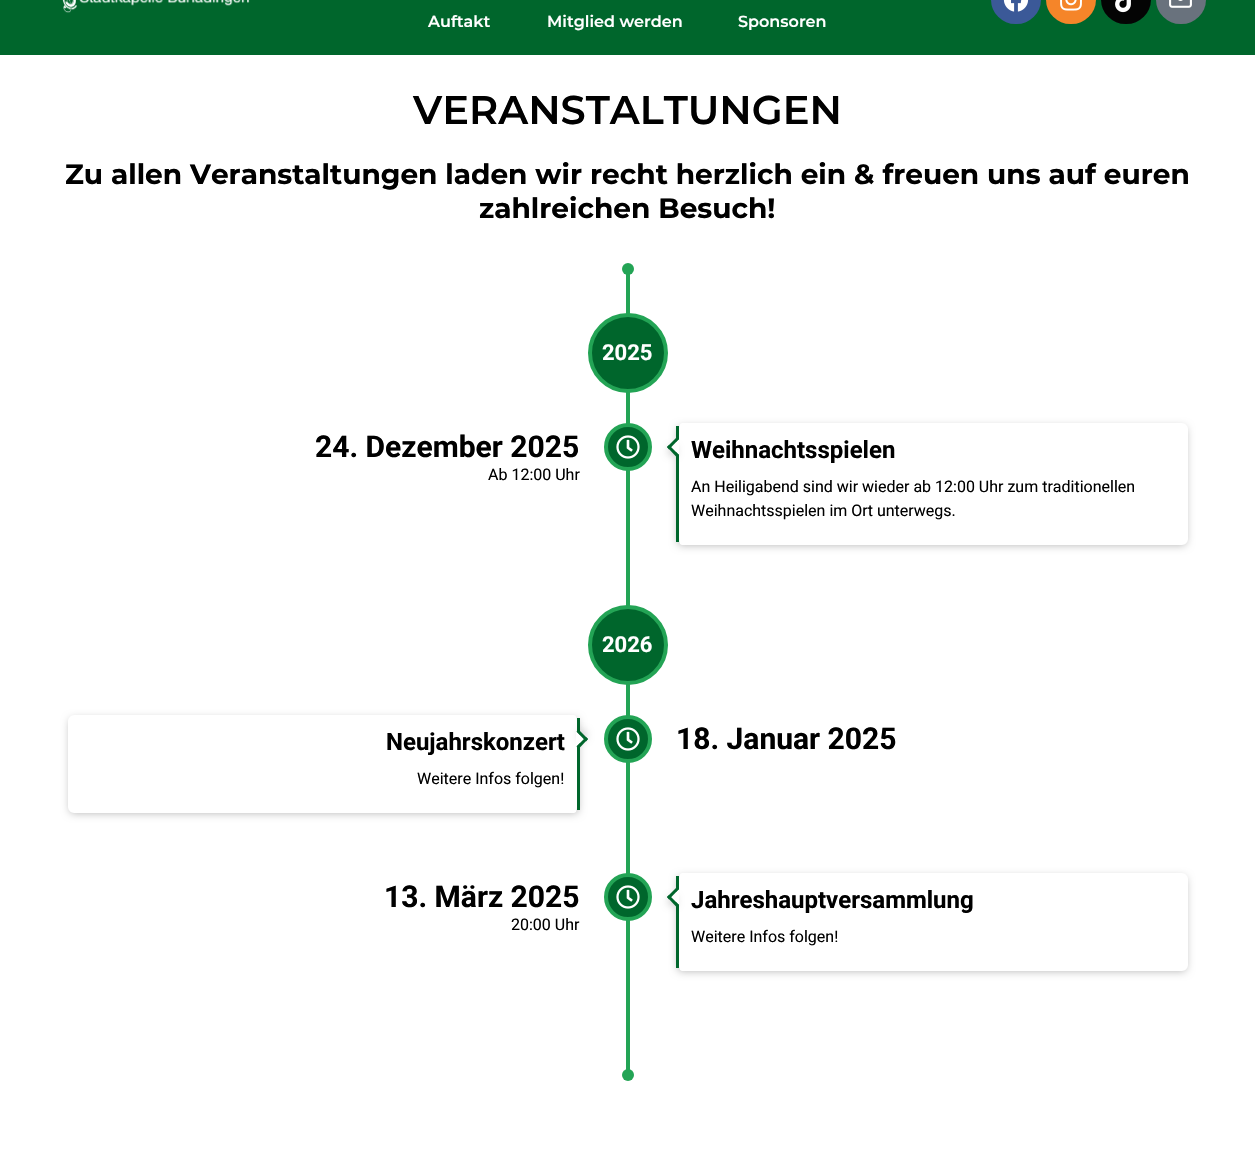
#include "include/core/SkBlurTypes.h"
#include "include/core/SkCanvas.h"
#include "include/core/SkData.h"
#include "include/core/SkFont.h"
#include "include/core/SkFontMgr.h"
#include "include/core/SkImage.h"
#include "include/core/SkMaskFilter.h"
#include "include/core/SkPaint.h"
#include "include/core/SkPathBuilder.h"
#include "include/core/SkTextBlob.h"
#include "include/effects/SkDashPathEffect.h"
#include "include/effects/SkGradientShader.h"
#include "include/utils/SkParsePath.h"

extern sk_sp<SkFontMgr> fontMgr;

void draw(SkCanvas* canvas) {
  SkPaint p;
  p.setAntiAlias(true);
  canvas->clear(SK_ColorWHITE);
  p.setColor(SkColorSetRGB(0, 102, 44));
  canvas->drawRect(SkRect::MakeLTRB(0, 0, 1255, 55), p);
  canvas->drawImageRect(SkImages::DeferredFromEncodedData(SkData::MakeFromFileName("images/1.png")), SkRect::MakeLTRB(62, 0, 250, 13), SkSamplingOptions());
  p.setColor(SkColorSetRGB(59, 89, 152));
  canvas->drawRoundRect(SkRect::MakeLTRB(991, -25, 1041, 24), 25, 25, p);
  canvas->drawImageRect(SkImages::DeferredFromEncodedData(SkData::MakeFromFileName("images/2.png")), SkRect::MakeLTRB(1003, 0, 1029, 12), SkSamplingOptions());
  p.setColor(SkColorSetRGB(245, 133, 41));
  canvas->drawRoundRect(SkRect::MakeLTRB(1046, -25, 1096, 24), 25, 25, p);
  canvas->drawImageRect(SkImages::DeferredFromEncodedData(SkData::MakeFromFileName("images/3.png")), SkRect::MakeLTRB(1060, 0, 1082, 11), SkSamplingOptions());
  p.setColor(SkColorSetRGB(4, 4, 4));
  canvas->drawRoundRect(SkRect::MakeLTRB(1101, -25, 1151, 24), 25, 25, p);
  canvas->drawImageRect(SkImages::DeferredFromEncodedData(SkData::MakeFromFileName("images/4.png")), SkRect::MakeLTRB(1115, 0, 1131, 13), SkSamplingOptions());
  p.setColor(SkColorSetRGB(105, 114, 125));
  canvas->drawRoundRect(SkRect::MakeLTRB(1156, -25, 1206, 24), 25, 25, p);
  canvas->drawImageRect(SkImages::DeferredFromEncodedData(SkData::MakeFromFileName("images/5.png")), SkRect::MakeLTRB(1169, 0, 1192, 8), SkSamplingOptions());
  p.setColor(SkColorSetRGB(35, 164, 85));
  canvas->drawRect(SkRect::MakeLTRB(626, 273, 630, 1071), p);
  canvas->drawCircle(628, 269, 6, p);
  p.setColor(SkColorSetRGB(0, 102, 44));
  canvas->drawCircle(628, 353, 38, p);
  p.setStyle(SkPaint::kStroke_Style);
  p.setStrokeWidth(4);
  p.setColor(SkColorSetRGB(35, 164, 85));
  canvas->drawCircle(628, 353, 38, p);
  p.setStyle(SkPaint::kFill_Style);
  p.setColor(SkColorSetRGB(0, 102, 44));
  canvas->drawCircle(628, 447, 22, p);
  p.setStyle(SkPaint::kStroke_Style);
  p.setColor(SkColorSetRGB(35, 164, 85));
  canvas->drawCircle(628, 447, 22, p);
  canvas->drawImageRect(SkImages::DeferredFromEncodedData(SkData::MakeFromFileName("images/6.png")), SkRect::MakeLTRB(616, 435, 640, 459), SkSamplingOptions());
  p.setStyle(SkPaint::kFill_Style);
  p.setColor(SkColorSetARGB(77, 0, 0, 0));
  p.setMaskFilter(SkMaskFilter::MakeBlur(kNormal_SkBlurStyle, 4));
  canvas->drawRoundRect(SkRect::MakeLTRB(678, 427, 1186, 545), 4, 4, p);
  p.setMaskFilter(nullptr);
  p.setColor(SK_ColorWHITE);
  canvas->drawPath(SkPathBuilder().moveTo(682, 423).lineTo(1182, 423).cubicTo(1185, 423, 1188, 426, 1188, 429).lineTo(1188, 539).cubicTo(1188, 542, 1185, 545, 1182, 545).lineTo(682, 545).cubicTo(680, 545, 679, 542, 679, 539).lineTo(679, 429).cubicTo(679, 426, 680, 423, 682, 423).close().detach(), p);
  p.setColor(SkColorSetRGB(0, 102, 44));
  canvas->drawRect(SkRect::MakeLTRB(676, 426, 679, 542), p);
  p.setColor(SkColorSetARGB(102, 0, 0, 0));
  p.setMaskFilter(SkMaskFilter::MakeBlur(kNormal_SkBlurStyle, 4));
  canvas->drawRect(SkRect::MakeLTRB(670, 448, 675, 454), p);
  p.setMaskFilter(nullptr);
  {
    const SkColor colors[] = {SK_ColorWHITE, SkColorSetARGB(0, 255, 255, 255)};
    const float stops[] = {0.52f, 0.52f};
    const SkPoint ends[] = {{671, 447}, {686, 447}};
    p.setShader(SkGradientShader::MakeLinear(ends, colors, stops, 2, SkTileMode::kClamp));
    p.setAlpha(255);
  }
  canvas->drawPath(SkPathBuilder().moveTo(678.5f, 439.5f).lineTo(686, 447).lineTo(678.5f, 454.5f).lineTo(671, 447).close().detach(), p);
  p.setShader(nullptr);
  p.setColor(SkColorSetRGB(0, 102, 44));
  canvas->drawPath(SkPathBuilder().moveTo(669, 445).lineTo(678.5f, 454.5f).lineTo(676.5f, 457).lineTo(667, 447).close().detach(), p);
  canvas->drawPath(SkPathBuilder().moveTo(676.5f, 437.5f).lineTo(678.5f, 439.5f).lineTo(669, 449.5f).lineTo(667, 447).close().detach(), p);
  canvas->drawCircle(628, 645, 38, p);
  p.setStyle(SkPaint::kStroke_Style);
  p.setColor(SkColorSetRGB(35, 164, 85));
  canvas->drawCircle(628, 645, 38, p);
  p.setStyle(SkPaint::kFill_Style);
  p.setColor(SkColorSetARGB(77, 0, 0, 0));
  p.setMaskFilter(SkMaskFilter::MakeBlur(kNormal_SkBlurStyle, 4));
  canvas->drawRoundRect(SkRect::MakeLTRB(70, 719, 578, 813), 4, 4, p);
  p.setMaskFilter(nullptr);
  p.setColor(SK_ColorWHITE);
  canvas->drawPath(SkPathBuilder().moveTo(74, 715).lineTo(574, 715).cubicTo(576, 715, 577, 718, 577, 721).lineTo(577, 807).cubicTo(577, 810, 576, 813, 574, 813).lineTo(74, 813).cubicTo(71, 813, 68, 810, 68, 807).lineTo(68, 721).cubicTo(68, 718, 71, 715, 74, 715).close().detach(), p);
  p.setColor(SkColorSetRGB(0, 102, 44));
  canvas->drawRect(SkRect::MakeLTRB(577, 718, 580, 810), p);
  p.setColor(SkColorSetARGB(102, 0, 0, 0));
  p.setMaskFilter(SkMaskFilter::MakeBlur(kNormal_SkBlurStyle, 4));
  canvas->drawRect(SkRect::MakeLTRB(580, 732, 585, 738), p);
  p.setMaskFilter(nullptr);
  {
    const SkColor colors[] = {SK_ColorWHITE, SkColorSetARGB(0, 255, 255, 255)};
    const float stops[] = {0.52f, 0.52f};
    const SkPoint ends[] = {{584, 739}, {569, 739}};
    p.setShader(SkGradientShader::MakeLinear(ends, colors, stops, 2, SkTileMode::kClamp));
    p.setAlpha(255);
  }
  canvas->drawPath(SkPathBuilder().moveTo(576.5f, 731.5f).lineTo(584, 739).lineTo(576.5f, 746.5f).lineTo(569, 739).close().detach(), p);
  p.setShader(nullptr);
  p.setColor(SkColorSetRGB(0, 102, 44));
  canvas->drawPath(SkPathBuilder().moveTo(578.5f, 729.5f).lineTo(588, 739).lineTo(586, 741.5f).lineTo(576.5f, 731.5f).close().detach(), p);
  canvas->drawPath(SkPathBuilder().moveTo(586, 737).lineTo(588, 739).lineTo(578.5f, 749).lineTo(576.5f, 746.5f).close().detach(), p);
  canvas->drawCircle(628, 739, 22, p);
  p.setStyle(SkPaint::kStroke_Style);
  p.setColor(SkColorSetRGB(35, 164, 85));
  canvas->drawCircle(628, 739, 22, p);
  canvas->drawImageRect(SkImages::DeferredFromEncodedData(SkData::MakeFromFileName("images/6.png")), SkRect::MakeLTRB(616, 727, 640, 751), SkSamplingOptions());
  p.setStyle(SkPaint::kFill_Style);
  p.setColor(SkColorSetRGB(0, 102, 44));
  canvas->drawCircle(628, 897, 22, p);
  p.setStyle(SkPaint::kStroke_Style);
  p.setColor(SkColorSetRGB(35, 164, 85));
  canvas->drawCircle(628, 897, 22, p);
  canvas->drawImageRect(SkImages::DeferredFromEncodedData(SkData::MakeFromFileName("images/6.png")), SkRect::MakeLTRB(616, 885, 640, 909), SkSamplingOptions());
  p.setStyle(SkPaint::kFill_Style);
  p.setColor(SkColorSetARGB(77, 0, 0, 0));
  p.setMaskFilter(SkMaskFilter::MakeBlur(kNormal_SkBlurStyle, 4));
  canvas->drawRoundRect(SkRect::MakeLTRB(678, 877, 1186, 971), 4, 4, p);
  p.setMaskFilter(nullptr);
  p.setColor(SK_ColorWHITE);
  canvas->drawPath(SkPathBuilder().moveTo(682, 873).lineTo(1182, 873).cubicTo(1185, 873, 1188, 876, 1188, 879).lineTo(1188, 965).cubicTo(1188, 968, 1185, 971, 1182, 971).lineTo(682, 971).cubicTo(680, 971, 679, 968, 679, 965).lineTo(679, 879).cubicTo(679, 876, 680, 873, 682, 873).close().detach(), p);
  p.setColor(SkColorSetRGB(0, 102, 44));
  canvas->drawRect(SkRect::MakeLTRB(676, 876, 679, 968), p);
  p.setColor(SkColorSetARGB(102, 0, 0, 0));
  p.setMaskFilter(SkMaskFilter::MakeBlur(kNormal_SkBlurStyle, 4));
  canvas->drawRect(SkRect::MakeLTRB(670, 898, 675, 904), p);
  p.setMaskFilter(nullptr);
  {
    const SkColor colors[] = {SK_ColorWHITE, SkColorSetARGB(0, 255, 255, 255)};
    const float stops[] = {0.52f, 0.52f};
    const SkPoint ends[] = {{671, 897}, {686, 897}};
    p.setShader(SkGradientShader::MakeLinear(ends, colors, stops, 2, SkTileMode::kClamp));
    p.setAlpha(255);
  }
  canvas->drawPath(SkPathBuilder().moveTo(678.5f, 889.5f).lineTo(686, 897).lineTo(678.5f, 904.5f).lineTo(671, 897).close().detach(), p);
  p.setShader(nullptr);
  p.setColor(SkColorSetRGB(0, 102, 44));
  canvas->drawPath(SkPathBuilder().moveTo(669, 895).lineTo(678.5f, 904.5f).lineTo(676.5f, 907).lineTo(667, 897).close().detach(), p);
  canvas->drawPath(SkPathBuilder().moveTo(676.5f, 887.5f).lineTo(678.5f, 889.5f).lineTo(669, 899.5f).lineTo(667, 897).close().detach(), p);
  p.setColor(SkColorSetRGB(35, 164, 85));
  canvas->drawCircle(628, 1075, 6, p);
  SkFont font1(fontMgr->matchFamilyStyle("Montserrat", SkFontStyle(600, SkFontStyle::kNormal_Width, SkFontStyle::kUpright_Slant)), 16);
  font1.setSubpixel(true);
  p.setColor(SK_ColorWHITE);
  canvas->drawString("Auftakt", 428, 27, font1, p);
  canvas->drawString("Mitglied werden", 547, 27, font1, p);
  canvas->drawString("Sponsoren", 738, 27, font1, p);
  SkFont font2(fontMgr->matchFamilyStyle("Montserrat", SkFontStyle(600, SkFontStyle::kNormal_Width, SkFontStyle::kUpright_Slant)), 40);
  font2.setSubpixel(true);
  p.setColor(SK_ColorBLACK);
  canvas->drawString("VERANSTALTUNGEN", 413, 124, font2, p);
  SkFont font3(fontMgr->matchFamilyStyle("Montserrat", SkFontStyle::Bold()), 28);
  font3.setSubpixel(true);
  canvas->drawString("Zu allen Veranstaltungen laden wir recht herzlich ein & freuen uns auf euren", 65, 184, font3, p);
  canvas->drawString("zahlreichen Besuch!", 479, 218, font3, p);
  SkFont font4(fontMgr->matchFamilyStyle("Roboto", SkFontStyle::Bold()), 22);
  font4.setSubpixel(true);
  p.setColor(SK_ColorWHITE);
  canvas->drawString("2025", 602, 360, font4, p);
  SkFont font5(fontMgr->matchFamilyStyle("Roboto", SkFontStyle::Bold()), 30);
  font5.setSubpixel(true);
  p.setColor(SK_ColorBLACK);
  canvas->drawString("24. Dezember 2025", 315, 457, font5, p);
  SkFont font6(fontMgr->matchFamilyStyle("Roboto", SkFontStyle::Normal()), 16);
  font6.setSubpixel(true);
  canvas->drawString("Ab 12:00 Uhr", 488, 480, font6, p);
  SkFont font7(fontMgr->matchFamilyStyle("Roboto", SkFontStyle::Bold()), 24);
  font7.setSubpixel(true);
  canvas->drawString("Weihnachtsspielen", 691, 458, font7, p);
  canvas->drawString("An Heiligabend sind wir wieder ab 12:00 Uhr zum traditionellen", 691, 492, font6, p);
  canvas->drawString("Weihnachtsspielen im Ort unterwegs.", 691, 516, font6, p);
  p.setColor(SK_ColorWHITE);
  canvas->drawString("2026", 602, 652, font4, p);
  p.setColor(SK_ColorBLACK);
  canvas->drawString("Neujahrskonzert", 386, 750, font7, p);
  canvas->drawString("Weitere Infos folgen!", 417, 784, font6, p);
  canvas->drawString("18. Januar 2025", 676, 749, font5, p);
  canvas->drawString("13. März 2025", 384, 907, font5, p);
  canvas->drawString("20:00 Uhr", 511, 930, font6, p);
  canvas->drawString("Jahreshauptversammlung", 691, 908, font7, p);
  canvas->drawString("Weitere Infos folgen!", 691, 942, font6, p);
}
